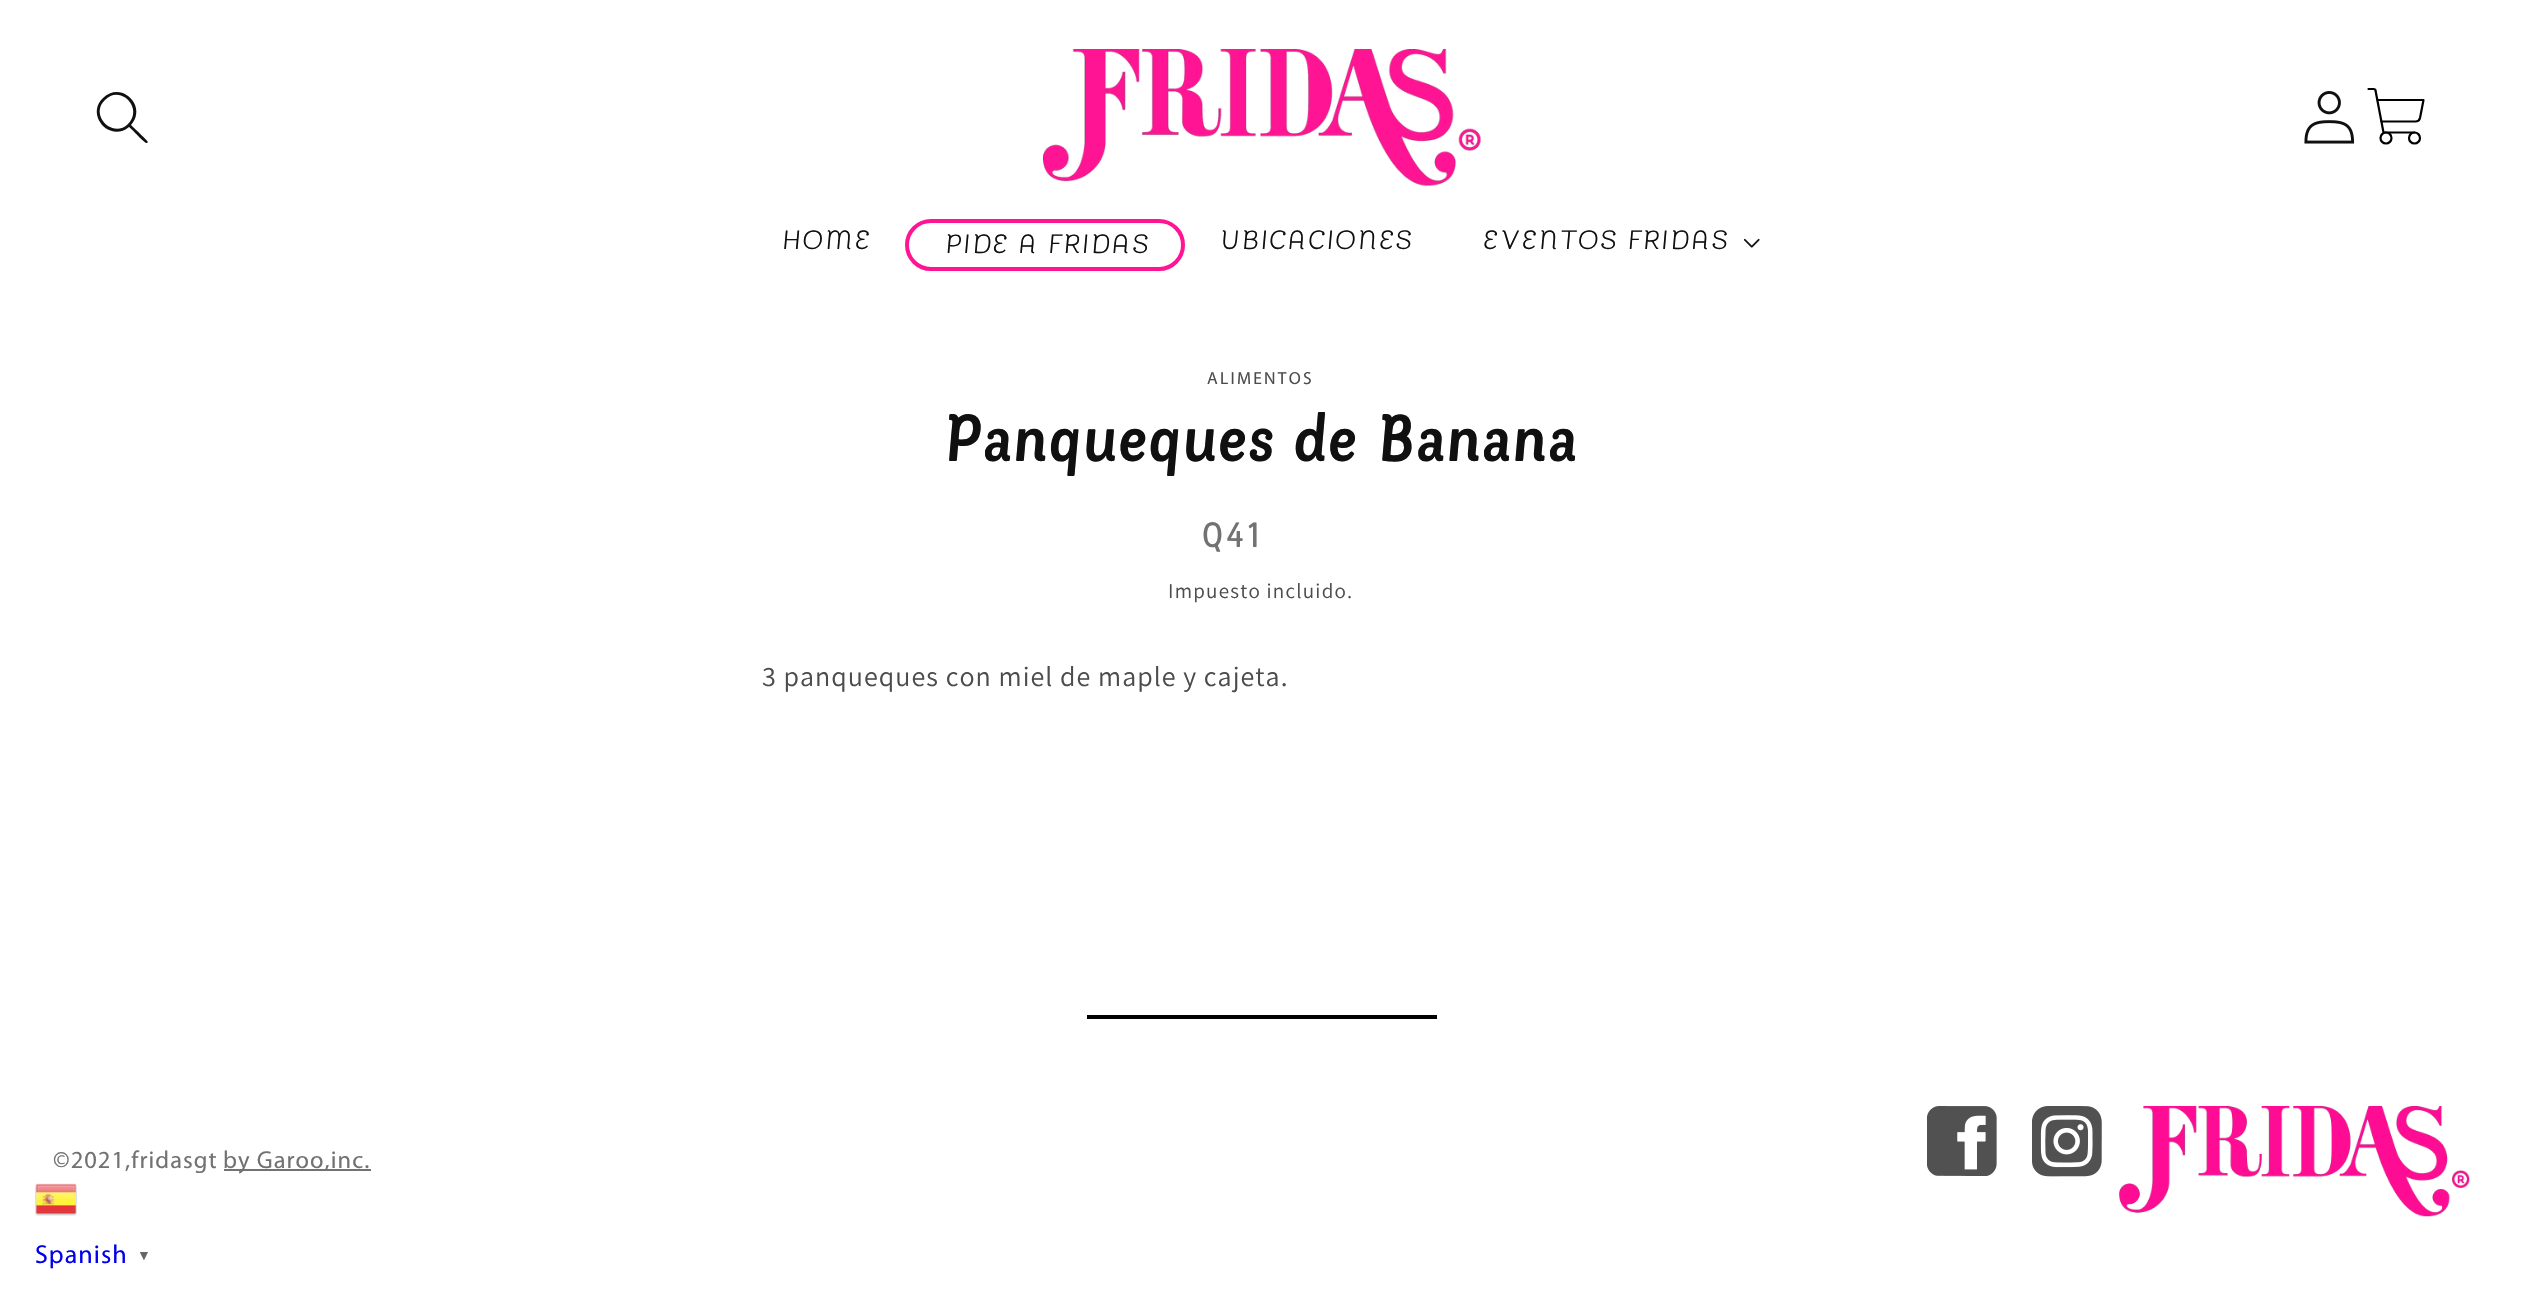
#include "include/core/SkBlurTypes.h"
#include "include/core/SkCanvas.h"
#include "include/core/SkData.h"
#include "include/core/SkFont.h"
#include "include/core/SkFontMgr.h"
#include "include/core/SkImage.h"
#include "include/core/SkMaskFilter.h"
#include "include/core/SkPaint.h"
#include "include/core/SkPathBuilder.h"
#include "include/core/SkTextBlob.h"
#include "include/effects/SkDashPathEffect.h"
#include "include/effects/SkGradientShader.h"
#include "include/utils/SkParsePath.h"

extern sk_sp<SkFontMgr> fontMgr;

void draw(SkCanvas* canvas) {
  SkPaint p;
  p.setAntiAlias(true);
  auto spacedText = [&](const char* s, float x, float y, const SkFont& font, const SkPaint& ink, float letter, float word) {
    std::vector<SkGlyphID> glyphs(font.countText(s, strlen(s), SkTextEncoding::kUTF8));
    std::vector<float> xs(glyphs.size());
    font.textToGlyphs(s, strlen(s), SkTextEncoding::kUTF8, glyphs);
    font.getXPos(glyphs, xs, x);
    float extra = 0;
    for (size_t i = 0; i < glyphs.size(); i++) {
      xs[i] += extra;
      extra += letter + word * (glyphs[i] == font.unicharToGlyph(' '));
    }
    canvas->drawTextBlob(SkTextBlob::MakeFromPosHGlyphs(glyphs, xs, y, font), 0, 0, ink);
  };
  canvas->clear(SK_ColorWHITE);
  p.setColor(SkColorSetRGB(16, 16, 16));
  canvas->drawPath(SkPathBuilder(SkPathFillType::kEvenOdd).moveTo(128, 124).cubicTo(113, 139, 89, 115, 105, 100).cubicTo(120, 84, 144, 108, 128, 124).close().moveTo(129, 127).cubicTo(110, 143, 85, 115, 103, 98).cubicTo(121, 80, 148, 106, 131, 125).cubicTo(133, 127, 147, 140, 148, 142).lineTo(147, 143).cubicTo(145, 144, 132, 129, 129, 127).close().detach(), p);
  canvas->drawImageRect(SkImages::DeferredFromEncodedData(SkData::MakeFromFileName("images/1.png")), SkRect::MakeLTRB(1043, 49, 1481, 186), SkSamplingOptions());
  canvas->drawImageRect(SkImages::DeferredFromEncodedData(SkData::MakeFromFileName("images/2.png")), SkRect::MakeLTRB(2304, 91, 2355, 144), SkSamplingOptions());
  p.setStyle(SkPaint::kStroke_Style);
  p.setStrokeWidth(2.2f);
  p.setStrokeCap(SkPaint::kRound_Cap);
  p.setStrokeJoin(SkPaint::kRound_Join);
  p.setColor(SK_ColorBLACK);
  canvas->drawPath(SkPathBuilder().moveTo(2414.5f, 132.5f).lineTo(2383.5f, 132.5f).lineTo(2375.5f, 90.5f).cubicTo(2375.5f, 89.5f, 2374.5f, 89, 2373.5f, 89).lineTo(2368.5f, 89).detach(), p);
  p.setStrokeCap(SkPaint::kButt_Cap);
  p.setStrokeJoin(SkPaint::kMiter_Join);
  canvas->drawCircle(2386, 138, 5.5f, p);
  canvas->drawCircle(2414.5f, 138, 5.5f, p);
  p.setStrokeCap(SkPaint::kRound_Cap);
  p.setStrokeJoin(SkPaint::kRound_Join);
  canvas->drawPath(SkPathBuilder().moveTo(2381.5f, 121.5f).lineTo(2415.5f, 121.5f).cubicTo(2418, 121.5f, 2419.5f, 120, 2420, 118).lineTo(2423.5f, 100).lineTo(2377.5f, 100).detach(), p);
  p.setStrokeWidth(4);
  p.setStrokeCap(SkPaint::kButt_Cap);
  p.setStrokeJoin(SkPaint::kMiter_Join);
  p.setColor(SkColorSetRGB(255, 20, 148));
  canvas->drawRoundRect(SkRect::MakeLTRB(907, 221, 1183, 269), 24, 24, p);
  canvas->drawImageRect(SkImages::DeferredFromEncodedData(SkData::MakeFromFileName("images/3.png")), SkRect::MakeLTRB(1743, 238, 1760, 248), SkSamplingOptions());
  p.setStyle(SkPaint::kFill_Style);
  p.setColor(SK_ColorBLACK);
  canvas->drawRect(SkRect::MakeLTRB(1087, 1015, 1437, 1019), p);
  p.setColor(SkColorSetRGB(114, 114, 114));
  canvas->drawRect(SkRect::MakeLTRB(224, 1169, 371, 1171), p);
  canvas->drawImageRect(SkImages::DeferredFromEncodedData(SkData::MakeFromFileName("images/4.png")), SkRect::MakeLTRB(1927, 1106, 1997, 1176), SkSamplingOptions());
  canvas->drawImageRect(SkImages::DeferredFromEncodedData(SkData::MakeFromFileName("images/5.png")), SkRect::MakeLTRB(2032, 1106, 2102, 1177), SkSamplingOptions());
  canvas->drawImageRect(SkImages::DeferredFromEncodedData(SkData::MakeFromFileName("images/6.png")), SkRect::MakeLTRB(2119, 1106, 2470, 1217), SkSamplingOptions());
  canvas->drawImageRect(SkImages::DeferredFromEncodedData(SkData::MakeFromFileName("images/7.png")), SkRect::MakeLTRB(35, 1183, 77, 1216), SkSamplingOptions());
  SkFont font1(fontMgr->matchFamilyStyle("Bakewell", SkFontStyle::Italic()), 28);
  font1.setSubpixel(true);
  p.setColor(SkColorSetRGB(16, 16, 16));
  spacedText("HOME", 782, 249, font1, p, 1.05f, 0);
  spacedText("PIDE A FRIDAS", 944, 253, font1, p, 1.05f, 2);
  spacedText("UBICACIONES", 1219, 249, font1, p, 1.05f, 0);
  spacedText("EVENTOS FRIDAS", 1483, 249, font1, p, 1.05f, 2);
  SkFont font2(fontMgr->matchFamilyStyle("Myriad", SkFontStyle::Normal()), 17.5f);
  font2.setSubpixel(true);
  p.setColor(SkColorSetRGB(76, 76, 76));
  spacedText("ALIMENTOS", 1207, 384, font2, p, 2.25f, 0);
  SkFont font3(fontMgr->matchFamilyStyle("Bakewell", SkFontStyle::Bold()), 70);
  font3.setSubpixel(true);
  p.setColor(SkColorSetRGB(16, 16, 16));
  spacedText("Panqueques de Banana", 943, 461, font3, p, 1.05f, 0);
  SkFont font4(fontMgr->matchFamilyStyle("Bakewell", SkFontStyle(500, SkFontStyle::kNormal_Width, SkFontStyle::kUpright_Slant)), 37);
  font4.setSubpixel(true);
  p.setColor(SkColorSetRGB(114, 114, 114));
  spacedText("Q41", 1202, 547, font4, p, 2.25f, 0);
  SkFont font5(fontMgr->matchFamilyStyle("Assistant", SkFontStyle::Normal()), 21);
  font5.setSubpixel(true);
  p.setColor(SkColorSetRGB(76, 76, 76));
  spacedText("Impuesto incluido.", 1168, 598, font5, p, 1.25f, 0);
  SkFont font6(fontMgr->matchFamilyStyle("Assistant", SkFontStyle::Normal()), 28);
  font6.setSubpixel(true);
  spacedText("3 panqueques con miel de maple y cajeta.", 762, 686, font6, p, 1.05f, 0);
  SkFont font7(fontMgr->matchFamilyStyle("Myriad", SkFontStyle::Normal()), 24.5f);
  font7.setSubpixel(true);
  p.setColor(SkColorSetRGB(114, 114, 114));
  spacedText("©2021,fridasgt", 53, 1168, font7, p, 1.05f, 0);
  spacedText("by Garoo,inc.", 223, 1168, font7, p, 1.05f, 0);
  SkFont font8(fontMgr->matchFamilyStyle("Myriad", SkFontStyle::Normal()), 26);
  font8.setSubpixel(true);
  p.setColor(SkColorSetRGB(0, 0, 238));
  spacedText("Spanish", 35, 1263, font8, p, 1.05f, 0);
  SkFont font9(fontMgr->matchFamilyStyle("Liberation Serif", SkFontStyle::Bold()), 14);
  font9.setSubpixel(true);
  p.setColor(SkColorSetRGB(102, 102, 102));
  spacedText("▼", 137, 1260, font9, p, 1.05f, 0);
}
